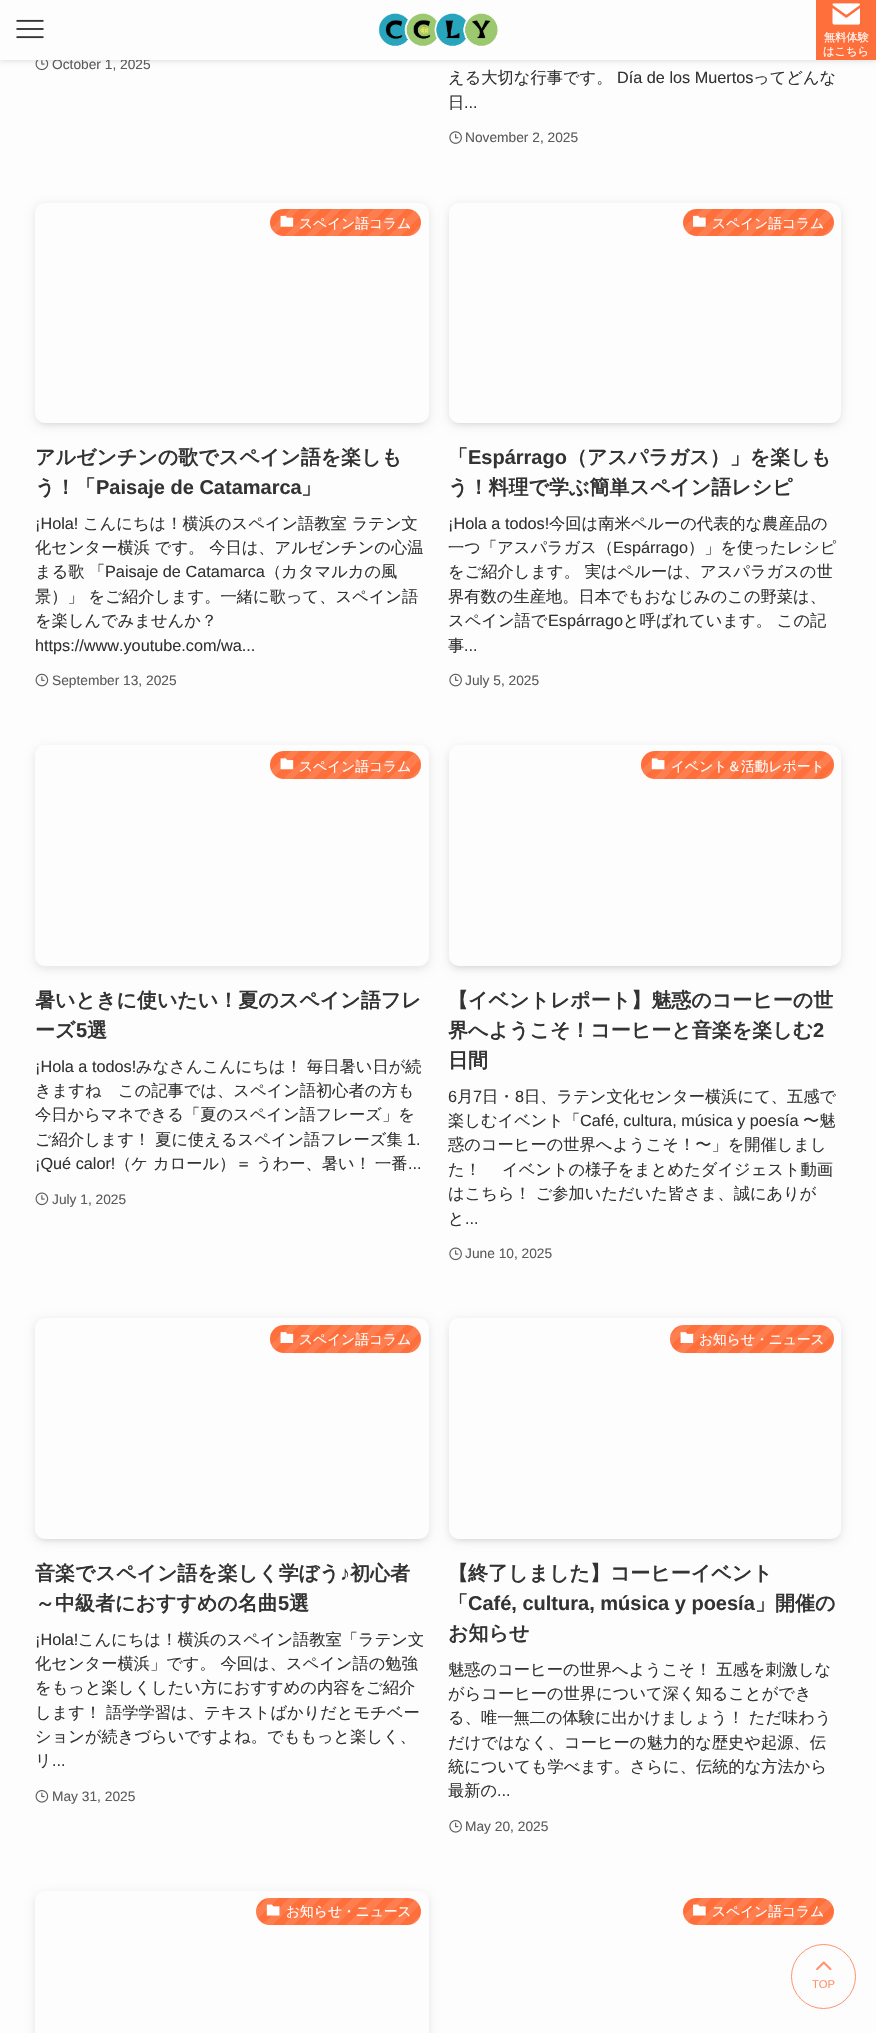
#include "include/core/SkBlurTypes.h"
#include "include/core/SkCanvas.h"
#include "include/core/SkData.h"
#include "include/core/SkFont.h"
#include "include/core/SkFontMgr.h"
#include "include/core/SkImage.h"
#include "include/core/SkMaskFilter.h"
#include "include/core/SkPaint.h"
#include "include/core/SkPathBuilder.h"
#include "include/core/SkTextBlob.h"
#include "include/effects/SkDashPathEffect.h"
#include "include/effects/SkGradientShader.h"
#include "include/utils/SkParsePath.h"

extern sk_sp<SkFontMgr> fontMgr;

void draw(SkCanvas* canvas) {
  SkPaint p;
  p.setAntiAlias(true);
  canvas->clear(SkColorSetRGB(253, 253, 253));
  canvas->drawImageRect(SkImages::DeferredFromEncodedData(SkData::MakeFromFileName("images/4.png")), SkRect::MakeLTRB(35, 60, 49, 71), SkSamplingOptions());
  p.setColor(SkColorSetARGB(31, 0, 0, 0));
  p.setMaskFilter(SkMaskFilter::MakeBlur(kNormal_SkBlurStyle, 2.5f));
  canvas->drawRect(SkRect::MakeLTRB(0, 1, 876, 61), p);
  p.setMaskFilter(nullptr);
  p.setColor(SkColorSetRGB(255, 111, 60));
  canvas->drawRect(SkRect::MakeLTRB(816, 0, 876, 60), p);
  canvas->drawImageRect(SkImages::DeferredFromEncodedData(SkData::MakeFromFileName("images/3.png")), SkRect::MakeLTRB(832, 3, 860, 25), SkSamplingOptions());
  canvas->drawImageRect(SkImages::DeferredFromEncodedData(SkData::MakeFromFileName("images/5.png")), SkRect::MakeLTRB(449, 131, 462, 144), SkSamplingOptions());
  canvas->save();
  canvas->clipPath(SkPathBuilder(SkPathFillType::kEvenOdd).moveTo(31, 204).lineTo(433, 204).lineTo(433, 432).lineTo(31, 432).close().moveTo(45, 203).lineTo(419, 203).cubicTo(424.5f, 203, 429, 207.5f, 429, 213).lineTo(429, 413).cubicTo(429, 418.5f, 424.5f, 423, 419, 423).lineTo(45, 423).cubicTo(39.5f, 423, 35, 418.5f, 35, 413).lineTo(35, 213).cubicTo(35, 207.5f, 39.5f, 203, 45, 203).close().detach(), true);
  p.setColor(SkColorSetARGB(26, 0, 0, 0));
  p.setMaskFilter(SkMaskFilter::MakeBlur(kNormal_SkBlurStyle, 2.5f));
  canvas->drawRoundRect(SkRect::MakeLTRB(40, 213, 424, 423), 5, 5, p);
  p.setMaskFilter(nullptr);
  canvas->restore();
  canvas->save();
  canvas->clipPath(SkPathBuilder(SkPathFillType::kEvenOdd).moveTo(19, 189).lineTo(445, 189).lineTo(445, 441).lineTo(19, 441).close().moveTo(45, 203).lineTo(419, 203).cubicTo(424.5f, 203, 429, 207.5f, 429, 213).lineTo(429, 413).cubicTo(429, 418.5f, 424.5f, 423, 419, 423).lineTo(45, 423).cubicTo(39.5f, 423, 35, 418.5f, 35, 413).lineTo(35, 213).cubicTo(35, 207.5f, 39.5f, 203, 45, 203).close().detach(), true);
  p.setMaskFilter(SkMaskFilter::MakeBlur(kNormal_SkBlurStyle, 5));
  canvas->drawRoundRect(SkRect::MakeLTRB(35, 205, 429, 425), 10, 10, p);
  p.setMaskFilter(nullptr);
  canvas->restore();
  p.setColor(SkColorSetRGB(255, 111, 60));
  canvas->drawRoundRect(SkRect::MakeLTRB(270, 209, 421, 236), 13.5f, 13.5f, p);
  {
    const SkColor colors[] = {SkColorSetARGB(26, 255, 255, 255), SkColorSetARGB(26, 255, 255, 255), SkColorSetARGB(0, 255, 255, 255), SkColorSetARGB(0, 255, 255, 255), SkColorSetARGB(26, 255, 255, 255), SkColorSetARGB(26, 255, 255, 255), SkColorSetARGB(0, 255, 255, 255), SkColorSetARGB(0, 255, 255, 255), SkColorSetARGB(26, 255, 255, 255), SkColorSetARGB(26, 255, 255, 255), SkColorSetARGB(0, 255, 255, 255), SkColorSetARGB(0, 255, 255, 255), SkColorSetARGB(26, 255, 255, 255), SkColorSetARGB(26, 255, 255, 255), SkColorSetARGB(0, 255, 255, 255), SkColorSetARGB(0, 255, 255, 255), SkColorSetARGB(26, 255, 255, 255), SkColorSetARGB(26, 255, 255, 255), SkColorSetARGB(0, 255, 255, 255), SkColorSetARGB(0, 255, 255, 255), SkColorSetARGB(26, 255, 255, 255), SkColorSetARGB(26, 255, 255, 255), SkColorSetARGB(0, 255, 255, 255), SkColorSetARGB(0, 255, 255, 255), SkColorSetARGB(26, 255, 255, 255), SkColorSetARGB(26, 255, 255, 255), SkColorSetARGB(0, 255, 255, 255), SkColorSetARGB(0, 255, 255, 255), SkColorSetARGB(26, 255, 255, 255), SkColorSetARGB(26, 255, 255, 255), SkColorSetARGB(0, 255, 255, 255), SkColorSetARGB(0, 255, 255, 255), SkColorSetARGB(26, 255, 255, 255), SkColorSetARGB(26, 255, 255, 255), SkColorSetARGB(0, 255, 255, 255), SkColorSetARGB(0, 0, 0, 0)};
    const float stops[] = {0, 0.06f, 0.06f, 0.11f, 0.11f, 0.17f, 0.17f, 0.22f, 0.22f, 0.28f, 0.28f, 0.33f, 0.33f, 0.39f, 0.39f, 0.44f, 0.44f, 0.5f, 0.5f, 0.56f, 0.56f, 0.61f, 0.61f, 0.67f, 0.67f, 0.72f, 0.72f, 0.78f, 0.78f, 0.83f, 0.83f, 0.89f, 0.89f, 0.94f, 0.94f, 1};
    const SkPoint ends[] = {{390, 267}, {295, 172}};
    p.setShader(SkGradientShader::MakeLinear(ends, colors, stops, 36, SkTileMode::kClamp));
    p.setAlpha(255);
  }
  canvas->drawRoundRect(SkRect::MakeLTRB(270, 209, 421, 236), 13.5f, 13.5f, p);
  canvas->drawImageRect(SkImages::DeferredFromEncodedData(SkData::MakeFromFileName("images/6.png")), SkRect::MakeLTRB(280, 215, 294, 227), SkSamplingOptions());
  canvas->drawImageRect(SkImages::DeferredFromEncodedData(SkData::MakeFromFileName("images/7.png")), SkRect::MakeLTRB(35, 673, 49, 687), SkSamplingOptions());
  canvas->save();
  canvas->clipPath(SkPathBuilder(SkPathFillType::kEvenOdd).moveTo(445, 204).lineTo(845, 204).lineTo(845, 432).lineTo(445, 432).close().moveTo(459, 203).lineTo(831, 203).cubicTo(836.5f, 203, 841, 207.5f, 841, 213).lineTo(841, 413).cubicTo(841, 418.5f, 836.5f, 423, 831, 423).lineTo(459, 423).cubicTo(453.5f, 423, 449, 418.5f, 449, 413).lineTo(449, 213).cubicTo(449, 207.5f, 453.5f, 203, 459, 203).close().detach(), true);
  p.setShader(nullptr);
  p.setColor(SkColorSetARGB(26, 0, 0, 0));
  p.setMaskFilter(SkMaskFilter::MakeBlur(kNormal_SkBlurStyle, 2.5f));
  canvas->drawRoundRect(SkRect::MakeLTRB(454, 213, 836, 423), 5, 5, p);
  p.setMaskFilter(nullptr);
  canvas->restore();
  canvas->save();
  canvas->clipPath(SkPathBuilder(SkPathFillType::kEvenOdd).moveTo(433, 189).lineTo(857, 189).lineTo(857, 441).lineTo(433, 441).close().moveTo(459, 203).lineTo(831, 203).cubicTo(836.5f, 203, 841, 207.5f, 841, 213).lineTo(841, 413).cubicTo(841, 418.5f, 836.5f, 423, 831, 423).lineTo(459, 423).cubicTo(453.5f, 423, 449, 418.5f, 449, 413).lineTo(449, 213).cubicTo(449, 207.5f, 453.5f, 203, 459, 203).close().detach(), true);
  p.setMaskFilter(SkMaskFilter::MakeBlur(kNormal_SkBlurStyle, 5));
  canvas->drawRoundRect(SkRect::MakeLTRB(449, 205, 841, 425), 10, 10, p);
  p.setMaskFilter(nullptr);
  canvas->restore();
  p.setColor(SkColorSetRGB(255, 111, 60));
  canvas->drawRoundRect(SkRect::MakeLTRB(683, 209, 834, 236), 13.5f, 13.5f, p);
  {
    const SkColor colors[] = {SkColorSetARGB(26, 255, 255, 255), SkColorSetARGB(26, 255, 255, 255), SkColorSetARGB(0, 255, 255, 255), SkColorSetARGB(0, 255, 255, 255), SkColorSetARGB(26, 255, 255, 255), SkColorSetARGB(26, 255, 255, 255), SkColorSetARGB(0, 255, 255, 255), SkColorSetARGB(0, 255, 255, 255), SkColorSetARGB(26, 255, 255, 255), SkColorSetARGB(26, 255, 255, 255), SkColorSetARGB(0, 255, 255, 255), SkColorSetARGB(0, 255, 255, 255), SkColorSetARGB(26, 255, 255, 255), SkColorSetARGB(26, 255, 255, 255), SkColorSetARGB(0, 255, 255, 255), SkColorSetARGB(0, 255, 255, 255), SkColorSetARGB(26, 255, 255, 255), SkColorSetARGB(26, 255, 255, 255), SkColorSetARGB(0, 255, 255, 255), SkColorSetARGB(0, 255, 255, 255), SkColorSetARGB(26, 255, 255, 255), SkColorSetARGB(26, 255, 255, 255), SkColorSetARGB(0, 255, 255, 255), SkColorSetARGB(0, 255, 255, 255), SkColorSetARGB(26, 255, 255, 255), SkColorSetARGB(26, 255, 255, 255), SkColorSetARGB(0, 255, 255, 255), SkColorSetARGB(0, 255, 255, 255), SkColorSetARGB(26, 255, 255, 255), SkColorSetARGB(26, 255, 255, 255), SkColorSetARGB(0, 255, 255, 255), SkColorSetARGB(0, 255, 255, 255), SkColorSetARGB(26, 255, 255, 255), SkColorSetARGB(26, 255, 255, 255), SkColorSetARGB(0, 255, 255, 255), SkColorSetARGB(0, 0, 0, 0)};
    const float stops[] = {0, 0.06f, 0.06f, 0.11f, 0.11f, 0.17f, 0.17f, 0.22f, 0.22f, 0.28f, 0.28f, 0.33f, 0.33f, 0.39f, 0.39f, 0.44f, 0.44f, 0.5f, 0.5f, 0.56f, 0.56f, 0.61f, 0.61f, 0.67f, 0.67f, 0.72f, 0.72f, 0.78f, 0.78f, 0.83f, 0.83f, 0.89f, 0.89f, 0.94f, 0.94f, 1};
    const SkPoint ends[] = {{803, 267}, {707, 172}};
    p.setShader(SkGradientShader::MakeLinear(ends, colors, stops, 36, SkTileMode::kClamp));
    p.setAlpha(255);
  }
  canvas->drawRoundRect(SkRect::MakeLTRB(683, 209, 834, 236), 13.5f, 13.5f, p);
  canvas->drawImageRect(SkImages::DeferredFromEncodedData(SkData::MakeFromFileName("images/8.png")), SkRect::MakeLTRB(693, 215, 706, 227), SkSamplingOptions());
  canvas->drawImageRect(SkImages::DeferredFromEncodedData(SkData::MakeFromFileName("images/9.png")), SkRect::MakeLTRB(449, 673, 462, 687), SkSamplingOptions());
  canvas->save();
  canvas->clipPath(SkPathBuilder(SkPathFillType::kEvenOdd).moveTo(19, 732).lineTo(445, 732).lineTo(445, 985).lineTo(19, 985).close().moveTo(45, 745).lineTo(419, 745).cubicTo(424.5f, 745, 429, 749.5f, 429, 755).lineTo(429, 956).cubicTo(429, 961.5f, 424.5f, 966, 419, 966).lineTo(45, 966).cubicTo(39.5f, 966, 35, 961.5f, 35, 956).lineTo(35, 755).cubicTo(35, 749.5f, 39.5f, 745, 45, 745).close().detach(), true);
  p.setShader(nullptr);
  p.setColor(SkColorSetARGB(26, 0, 0, 0));
  p.setMaskFilter(SkMaskFilter::MakeBlur(kNormal_SkBlurStyle, 5));
  canvas->drawRoundRect(SkRect::MakeLTRB(35, 748, 429, 969), 10, 10, p);
  p.setMaskFilter(nullptr);
  canvas->restore();
  p.setColor(SkColorSetRGB(255, 111, 60));
  canvas->drawRoundRect(SkRect::MakeLTRB(270, 751, 421, 779), 14, 14, p);
  {
    const SkColor colors[] = {SkColorSetARGB(26, 255, 255, 255), SkColorSetARGB(26, 255, 255, 255), SkColorSetARGB(0, 255, 255, 255), SkColorSetARGB(0, 255, 255, 255), SkColorSetARGB(26, 255, 255, 255), SkColorSetARGB(26, 255, 255, 255), SkColorSetARGB(0, 255, 255, 255), SkColorSetARGB(0, 255, 255, 255), SkColorSetARGB(26, 255, 255, 255), SkColorSetARGB(26, 255, 255, 255), SkColorSetARGB(0, 255, 255, 255), SkColorSetARGB(0, 255, 255, 255), SkColorSetARGB(26, 255, 255, 255), SkColorSetARGB(26, 255, 255, 255), SkColorSetARGB(0, 255, 255, 255), SkColorSetARGB(0, 255, 255, 255), SkColorSetARGB(26, 255, 255, 255), SkColorSetARGB(26, 255, 255, 255), SkColorSetARGB(0, 255, 255, 255), SkColorSetARGB(0, 255, 255, 255), SkColorSetARGB(26, 255, 255, 255), SkColorSetARGB(26, 255, 255, 255), SkColorSetARGB(0, 255, 255, 255), SkColorSetARGB(0, 255, 255, 255), SkColorSetARGB(26, 255, 255, 255), SkColorSetARGB(26, 255, 255, 255), SkColorSetARGB(0, 255, 255, 255), SkColorSetARGB(0, 255, 255, 255), SkColorSetARGB(26, 255, 255, 255), SkColorSetARGB(26, 255, 255, 255), SkColorSetARGB(0, 255, 255, 255), SkColorSetARGB(0, 255, 255, 255), SkColorSetARGB(26, 255, 255, 255), SkColorSetARGB(26, 255, 255, 255), SkColorSetARGB(0, 255, 255, 255), SkColorSetARGB(0, 0, 0, 0)};
    const float stops[] = {0, 0.06f, 0.06f, 0.11f, 0.11f, 0.17f, 0.17f, 0.22f, 0.22f, 0.28f, 0.28f, 0.33f, 0.33f, 0.39f, 0.39f, 0.44f, 0.44f, 0.5f, 0.5f, 0.56f, 0.56f, 0.61f, 0.61f, 0.67f, 0.67f, 0.72f, 0.72f, 0.78f, 0.78f, 0.83f, 0.83f, 0.89f, 0.89f, 0.94f, 0.94f, 1};
    const SkPoint ends[] = {{390, 810}, {295, 714}};
    p.setShader(SkGradientShader::MakeLinear(ends, colors, stops, 36, SkTileMode::kClamp));
    p.setAlpha(255);
  }
  canvas->drawRoundRect(SkRect::MakeLTRB(270, 751, 421, 779), 14, 14, p);
  canvas->drawImageRect(SkImages::DeferredFromEncodedData(SkData::MakeFromFileName("images/10.png")), SkRect::MakeLTRB(280, 758, 294, 770), SkSamplingOptions());
  canvas->drawImageRect(SkImages::DeferredFromEncodedData(SkData::MakeFromFileName("images/11.png")), SkRect::MakeLTRB(35, 1192, 49, 1206), SkSamplingOptions());
  p.setShader(nullptr);
  p.setColor(SkColorSetARGB(26, 0, 0, 0));
  p.setMaskFilter(SkMaskFilter::MakeBlur(kNormal_SkBlurStyle, 2.5f));
  canvas->drawRoundRect(SkRect::MakeLTRB(454, 755, 836, 966), 5, 5, p);
  p.setMaskFilter(nullptr);
  p.setMaskFilter(SkMaskFilter::MakeBlur(kNormal_SkBlurStyle, 5));
  canvas->drawRoundRect(SkRect::MakeLTRB(449, 748, 841, 969), 10, 10, p);
  p.setMaskFilter(nullptr);
  {
    const SkColor colors[] = {SkColorSetRGB(253, 253, 253), SkColorSetRGB(253, 253, 253)};
    const float stops[] = {0, 1};
    const SkPoint ends[] = {{492, 1009}, {798, 702}};
    p.setShader(SkGradientShader::MakeLinear(ends, colors, stops, 2, SkTileMode::kClamp));
    p.setAlpha(255);
  }
  canvas->drawRoundRect(SkRect::MakeLTRB(449, 745, 841, 966), 10, 10, p);
  p.setShader(nullptr);
  p.setColor(SkColorSetRGB(255, 111, 60));
  canvas->drawRoundRect(SkRect::MakeLTRB(641, 751, 834, 779), 14, 14, p);
  {
    const SkColor colors[] = {SkColorSetARGB(26, 255, 255, 255), SkColorSetARGB(26, 255, 255, 255), SkColorSetARGB(0, 255, 255, 255), SkColorSetARGB(0, 255, 255, 255), SkColorSetARGB(26, 255, 255, 255), SkColorSetARGB(26, 255, 255, 255), SkColorSetARGB(0, 255, 255, 255), SkColorSetARGB(0, 255, 255, 255), SkColorSetARGB(26, 255, 255, 255), SkColorSetARGB(26, 255, 255, 255), SkColorSetARGB(0, 255, 255, 255), SkColorSetARGB(0, 255, 255, 255), SkColorSetARGB(26, 255, 255, 255), SkColorSetARGB(26, 255, 255, 255), SkColorSetARGB(0, 255, 255, 255), SkColorSetARGB(0, 255, 255, 255), SkColorSetARGB(26, 255, 255, 255), SkColorSetARGB(26, 255, 255, 255), SkColorSetARGB(0, 255, 255, 255), SkColorSetARGB(0, 255, 255, 255), SkColorSetARGB(26, 255, 255, 255), SkColorSetARGB(26, 255, 255, 255), SkColorSetARGB(0, 255, 255, 255), SkColorSetARGB(0, 255, 255, 255), SkColorSetARGB(26, 255, 255, 255), SkColorSetARGB(26, 255, 255, 255), SkColorSetARGB(0, 255, 255, 255), SkColorSetARGB(0, 255, 255, 255), SkColorSetARGB(26, 255, 255, 255), SkColorSetARGB(26, 255, 255, 255), SkColorSetARGB(0, 255, 255, 255), SkColorSetARGB(0, 255, 255, 255), SkColorSetARGB(26, 255, 255, 255), SkColorSetARGB(26, 255, 255, 255), SkColorSetARGB(0, 255, 255, 255), SkColorSetARGB(0, 255, 255, 255), SkColorSetARGB(26, 255, 255, 255), SkColorSetARGB(26, 255, 255, 255), SkColorSetARGB(0, 255, 255, 255), SkColorSetARGB(0, 255, 255, 255), SkColorSetARGB(26, 255, 255, 255), SkColorSetARGB(26, 255, 255, 255), SkColorSetARGB(0, 255, 255, 255), SkColorSetARGB(0, 0, 0, 0)};
    const float stops[] = {0, 0.05f, 0.05f, 0.09f, 0.09f, 0.14f, 0.14f, 0.18f, 0.18f, 0.23f, 0.23f, 0.27f, 0.27f, 0.32f, 0.32f, 0.36f, 0.36f, 0.41f, 0.41f, 0.45f, 0.45f, 0.5f, 0.5f, 0.55f, 0.55f, 0.59f, 0.59f, 0.64f, 0.64f, 0.68f, 0.68f, 0.73f, 0.73f, 0.77f, 0.77f, 0.82f, 0.82f, 0.86f, 0.86f, 0.91f, 0.91f, 0.95f, 0.95f, 1};
    const SkPoint ends[] = {{793, 820}, {676, 703}};
    p.setShader(SkGradientShader::MakeLinear(ends, colors, stops, 44, SkTileMode::kClamp));
    p.setAlpha(255);
  }
  canvas->drawRoundRect(SkRect::MakeLTRB(641, 751, 834, 779), 14, 14, p);
  canvas->drawImageRect(SkImages::DeferredFromEncodedData(SkData::MakeFromFileName("images/12.png")), SkRect::MakeLTRB(651, 758, 665, 770), SkSamplingOptions());
  canvas->drawImageRect(SkImages::DeferredFromEncodedData(SkData::MakeFromFileName("images/13.png")), SkRect::MakeLTRB(449, 1247, 462, 1261), SkSamplingOptions());
  canvas->save();
  canvas->clipPath(SkPathBuilder(SkPathFillType::kEvenOdd).moveTo(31, 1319).lineTo(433, 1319).lineTo(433, 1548).lineTo(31, 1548).close().moveTo(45, 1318).lineTo(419, 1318).cubicTo(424.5f, 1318, 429, 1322.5f, 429, 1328).lineTo(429, 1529).cubicTo(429, 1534.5f, 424.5f, 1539, 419, 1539).lineTo(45, 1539).cubicTo(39.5f, 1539, 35, 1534.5f, 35, 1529).lineTo(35, 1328).cubicTo(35, 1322.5f, 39.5f, 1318, 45, 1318).close().detach(), true);
  p.setShader(nullptr);
  p.setColor(SkColorSetARGB(26, 0, 0, 0));
  p.setMaskFilter(SkMaskFilter::MakeBlur(kNormal_SkBlurStyle, 2.5f));
  canvas->drawRoundRect(SkRect::MakeLTRB(40, 1328, 424, 1539), 5, 5, p);
  p.setMaskFilter(nullptr);
  canvas->restore();
  canvas->save();
  canvas->clipPath(SkPathBuilder(SkPathFillType::kEvenOdd).moveTo(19, 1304).lineTo(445, 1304).lineTo(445, 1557).lineTo(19, 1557).close().moveTo(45, 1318).lineTo(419, 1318).cubicTo(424.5f, 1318, 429, 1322.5f, 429, 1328).lineTo(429, 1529).cubicTo(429, 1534.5f, 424.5f, 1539, 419, 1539).lineTo(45, 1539).cubicTo(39.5f, 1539, 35, 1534.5f, 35, 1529).lineTo(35, 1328).cubicTo(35, 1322.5f, 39.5f, 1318, 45, 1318).close().detach(), true);
  p.setMaskFilter(SkMaskFilter::MakeBlur(kNormal_SkBlurStyle, 5));
  canvas->drawRoundRect(SkRect::MakeLTRB(35, 1320, 429, 1541), 10, 10, p);
  p.setMaskFilter(nullptr);
  canvas->restore();
  p.setColor(SkColorSetRGB(255, 111, 60));
  canvas->drawRoundRect(SkRect::MakeLTRB(270, 1325, 421, 1353), 14, 14, p);
  {
    const SkColor colors[] = {SkColorSetARGB(26, 255, 255, 255), SkColorSetARGB(26, 255, 255, 255), SkColorSetARGB(0, 255, 255, 255), SkColorSetARGB(0, 255, 255, 255), SkColorSetARGB(26, 255, 255, 255), SkColorSetARGB(26, 255, 255, 255), SkColorSetARGB(0, 255, 255, 255), SkColorSetARGB(0, 255, 255, 255), SkColorSetARGB(26, 255, 255, 255), SkColorSetARGB(26, 255, 255, 255), SkColorSetARGB(0, 255, 255, 255), SkColorSetARGB(0, 255, 255, 255), SkColorSetARGB(26, 255, 255, 255), SkColorSetARGB(26, 255, 255, 255), SkColorSetARGB(0, 255, 255, 255), SkColorSetARGB(0, 255, 255, 255), SkColorSetARGB(26, 255, 255, 255), SkColorSetARGB(26, 255, 255, 255), SkColorSetARGB(0, 255, 255, 255), SkColorSetARGB(0, 255, 255, 255), SkColorSetARGB(26, 255, 255, 255), SkColorSetARGB(26, 255, 255, 255), SkColorSetARGB(0, 255, 255, 255), SkColorSetARGB(0, 255, 255, 255), SkColorSetARGB(26, 255, 255, 255), SkColorSetARGB(26, 255, 255, 255), SkColorSetARGB(0, 255, 255, 255), SkColorSetARGB(0, 255, 255, 255), SkColorSetARGB(26, 255, 255, 255), SkColorSetARGB(26, 255, 255, 255), SkColorSetARGB(0, 255, 255, 255), SkColorSetARGB(0, 255, 255, 255), SkColorSetARGB(26, 255, 255, 255), SkColorSetARGB(26, 255, 255, 255), SkColorSetARGB(0, 255, 255, 255), SkColorSetARGB(0, 0, 0, 0)};
    const float stops[] = {0, 0.06f, 0.06f, 0.11f, 0.11f, 0.17f, 0.17f, 0.22f, 0.22f, 0.28f, 0.28f, 0.33f, 0.33f, 0.39f, 0.39f, 0.44f, 0.44f, 0.5f, 0.5f, 0.56f, 0.56f, 0.61f, 0.61f, 0.67f, 0.67f, 0.72f, 0.72f, 0.78f, 0.78f, 0.83f, 0.83f, 0.89f, 0.89f, 0.94f, 0.94f, 1};
    const SkPoint ends[] = {{390, 1383}, {295, 1288}};
    p.setShader(SkGradientShader::MakeLinear(ends, colors, stops, 36, SkTileMode::kClamp));
    p.setAlpha(255);
  }
  canvas->drawRoundRect(SkRect::MakeLTRB(270, 1325, 421, 1353), 14, 14, p);
  canvas->drawImageRect(SkImages::DeferredFromEncodedData(SkData::MakeFromFileName("images/14.png")), SkRect::MakeLTRB(280, 1332, 294, 1343), SkSamplingOptions());
  canvas->drawImageRect(SkImages::DeferredFromEncodedData(SkData::MakeFromFileName("images/15.png")), SkRect::MakeLTRB(35, 1790, 49, 1803), SkSamplingOptions());
  canvas->save();
  canvas->clipPath(SkPathBuilder(SkPathFillType::kEvenOdd).moveTo(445, 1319).lineTo(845, 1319).lineTo(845, 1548).lineTo(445, 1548).close().moveTo(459, 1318).lineTo(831, 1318).cubicTo(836.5f, 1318, 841, 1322.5f, 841, 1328).lineTo(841, 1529).cubicTo(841, 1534.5f, 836.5f, 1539, 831, 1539).lineTo(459, 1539).cubicTo(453.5f, 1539, 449, 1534.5f, 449, 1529).lineTo(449, 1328).cubicTo(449, 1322.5f, 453.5f, 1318, 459, 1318).close().detach(), true);
  p.setShader(nullptr);
  p.setColor(SkColorSetARGB(26, 0, 0, 0));
  p.setMaskFilter(SkMaskFilter::MakeBlur(kNormal_SkBlurStyle, 2.5f));
  canvas->drawRoundRect(SkRect::MakeLTRB(454, 1328, 836, 1539), 5, 5, p);
  p.setMaskFilter(nullptr);
  canvas->restore();
  canvas->save();
  canvas->clipPath(SkPathBuilder(SkPathFillType::kEvenOdd).moveTo(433, 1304).lineTo(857, 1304).lineTo(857, 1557).lineTo(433, 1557).close().moveTo(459, 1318).lineTo(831, 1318).cubicTo(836.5f, 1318, 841, 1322.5f, 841, 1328).lineTo(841, 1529).cubicTo(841, 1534.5f, 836.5f, 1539, 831, 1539).lineTo(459, 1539).cubicTo(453.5f, 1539, 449, 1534.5f, 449, 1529).lineTo(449, 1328).cubicTo(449, 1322.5f, 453.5f, 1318, 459, 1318).close().detach(), true);
  p.setMaskFilter(SkMaskFilter::MakeBlur(kNormal_SkBlurStyle, 5));
  canvas->drawRoundRect(SkRect::MakeLTRB(449, 1320, 841, 1541), 10, 10, p);
  p.setMaskFilter(nullptr);
  canvas->restore();
  p.setColor(SkColorSetRGB(255, 111, 60));
  canvas->drawRoundRect(SkRect::MakeLTRB(670, 1325, 834, 1353), 14, 14, p);
  {
    const SkColor colors[] = {SkColorSetARGB(26, 255, 255, 255), SkColorSetARGB(26, 255, 255, 255), SkColorSetARGB(0, 255, 255, 255), SkColorSetARGB(0, 255, 255, 255), SkColorSetARGB(26, 255, 255, 255), SkColorSetARGB(26, 255, 255, 255), SkColorSetARGB(0, 255, 255, 255), SkColorSetARGB(0, 255, 255, 255), SkColorSetARGB(26, 255, 255, 255), SkColorSetARGB(26, 255, 255, 255), SkColorSetARGB(0, 255, 255, 255), SkColorSetARGB(0, 255, 255, 255), SkColorSetARGB(26, 255, 255, 255), SkColorSetARGB(26, 255, 255, 255), SkColorSetARGB(0, 255, 255, 255), SkColorSetARGB(0, 255, 255, 255), SkColorSetARGB(26, 255, 255, 255), SkColorSetARGB(26, 255, 255, 255), SkColorSetARGB(0, 255, 255, 255), SkColorSetARGB(0, 255, 255, 255), SkColorSetARGB(26, 255, 255, 255), SkColorSetARGB(26, 255, 255, 255), SkColorSetARGB(0, 255, 255, 255), SkColorSetARGB(0, 255, 255, 255), SkColorSetARGB(26, 255, 255, 255), SkColorSetARGB(26, 255, 255, 255), SkColorSetARGB(0, 255, 255, 255), SkColorSetARGB(0, 255, 255, 255), SkColorSetARGB(26, 255, 255, 255), SkColorSetARGB(26, 255, 255, 255), SkColorSetARGB(0, 255, 255, 255), SkColorSetARGB(0, 255, 255, 255), SkColorSetARGB(26, 255, 255, 255), SkColorSetARGB(26, 255, 255, 255), SkColorSetARGB(0, 255, 255, 255), SkColorSetARGB(0, 255, 255, 255), SkColorSetARGB(26, 255, 255, 255), SkColorSetARGB(26, 255, 255, 255), SkColorSetARGB(0, 255, 255, 255), SkColorSetARGB(0, 0, 0, 0)};
    const float stops[] = {0, 0.05f, 0.05f, 0.1f, 0.1f, 0.15f, 0.15f, 0.2f, 0.2f, 0.25f, 0.25f, 0.3f, 0.3f, 0.35f, 0.35f, 0.4f, 0.4f, 0.45f, 0.45f, 0.5f, 0.5f, 0.55f, 0.55f, 0.6f, 0.6f, 0.65f, 0.65f, 0.7f, 0.7f, 0.75f, 0.75f, 0.8f, 0.8f, 0.85f, 0.85f, 0.9f, 0.9f, 0.95f, 0.95f, 1};
    const SkPoint ends[] = {{800, 1387}, {694, 1280}};
    p.setShader(SkGradientShader::MakeLinear(ends, colors, stops, 40, SkTileMode::kClamp));
    p.setAlpha(255);
  }
  canvas->drawRoundRect(SkRect::MakeLTRB(670, 1325, 834, 1353), 14, 14, p);
  canvas->drawImageRect(SkImages::DeferredFromEncodedData(SkData::MakeFromFileName("images/16.png")), SkRect::MakeLTRB(680, 1332, 694, 1343), SkSamplingOptions());
  canvas->drawImageRect(SkImages::DeferredFromEncodedData(SkData::MakeFromFileName("images/17.png")), SkRect::MakeLTRB(449, 1820, 462, 1833), SkSamplingOptions());
  canvas->save();
  canvas->clipPath(SkPathBuilder(SkPathFillType::kEvenOdd).moveTo(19, 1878).lineTo(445, 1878).lineTo(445, 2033).lineTo(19, 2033).close().moveTo(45, 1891).lineTo(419, 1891).cubicTo(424.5f, 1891, 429, 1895.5f, 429, 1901).lineTo(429, 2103).cubicTo(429, 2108.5f, 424.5f, 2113, 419, 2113).lineTo(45, 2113).cubicTo(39.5f, 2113, 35, 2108.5f, 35, 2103).lineTo(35, 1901).cubicTo(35, 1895.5f, 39.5f, 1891, 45, 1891).close().detach(), true);
  p.setShader(nullptr);
  p.setColor(SkColorSetARGB(26, 0, 0, 0));
  p.setMaskFilter(SkMaskFilter::MakeBlur(kNormal_SkBlurStyle, 5));
  canvas->drawRoundRect(SkRect::MakeLTRB(35, 1894, 429, 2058), 10, 10, p);
  p.setMaskFilter(nullptr);
  canvas->restore();
  p.setColor(SkColorSetRGB(255, 111, 60));
  canvas->drawRoundRect(SkRect::MakeLTRB(256, 1898, 421, 1925), 13.5f, 13.5f, p);
  {
    const SkColor colors[] = {SkColorSetARGB(26, 255, 255, 255), SkColorSetARGB(26, 255, 255, 255), SkColorSetARGB(0, 255, 255, 255), SkColorSetARGB(0, 255, 255, 255), SkColorSetARGB(26, 255, 255, 255), SkColorSetARGB(26, 255, 255, 255), SkColorSetARGB(0, 255, 255, 255), SkColorSetARGB(0, 255, 255, 255), SkColorSetARGB(26, 255, 255, 255), SkColorSetARGB(26, 255, 255, 255), SkColorSetARGB(0, 255, 255, 255), SkColorSetARGB(0, 255, 255, 255), SkColorSetARGB(26, 255, 255, 255), SkColorSetARGB(26, 255, 255, 255), SkColorSetARGB(0, 255, 255, 255), SkColorSetARGB(0, 255, 255, 255), SkColorSetARGB(26, 255, 255, 255), SkColorSetARGB(26, 255, 255, 255), SkColorSetARGB(0, 255, 255, 255), SkColorSetARGB(0, 255, 255, 255), SkColorSetARGB(26, 255, 255, 255), SkColorSetARGB(26, 255, 255, 255), SkColorSetARGB(0, 255, 255, 255), SkColorSetARGB(0, 255, 255, 255), SkColorSetARGB(26, 255, 255, 255), SkColorSetARGB(26, 255, 255, 255), SkColorSetARGB(0, 255, 255, 255), SkColorSetARGB(0, 255, 255, 255), SkColorSetARGB(26, 255, 255, 255), SkColorSetARGB(26, 255, 255, 255), SkColorSetARGB(0, 255, 255, 255), SkColorSetARGB(0, 255, 255, 255), SkColorSetARGB(26, 255, 255, 255), SkColorSetARGB(26, 255, 255, 255), SkColorSetARGB(0, 255, 255, 255), SkColorSetARGB(0, 255, 255, 255), SkColorSetARGB(26, 255, 255, 255), SkColorSetARGB(26, 255, 255, 255), SkColorSetARGB(0, 255, 255, 255), SkColorSetARGB(0, 0, 0, 0)};
    const float stops[] = {0, 0.05f, 0.05f, 0.1f, 0.1f, 0.15f, 0.15f, 0.2f, 0.2f, 0.25f, 0.25f, 0.3f, 0.3f, 0.35f, 0.35f, 0.4f, 0.4f, 0.45f, 0.45f, 0.5f, 0.5f, 0.55f, 0.55f, 0.6f, 0.6f, 0.65f, 0.65f, 0.7f, 0.7f, 0.75f, 0.75f, 0.8f, 0.8f, 0.85f, 0.85f, 0.9f, 0.9f, 0.95f, 0.95f, 1};
    const SkPoint ends[] = {{387, 1959}, {281, 1853}};
    p.setShader(SkGradientShader::MakeLinear(ends, colors, stops, 40, SkTileMode::kClamp));
    p.setAlpha(255);
  }
  canvas->drawRoundRect(SkRect::MakeLTRB(256, 1898, 421, 1925), 13.5f, 13.5f, p);
  canvas->drawImageRect(SkImages::DeferredFromEncodedData(SkData::MakeFromFileName("images/18.png")), SkRect::MakeLTRB(266, 1904, 280, 1916), SkSamplingOptions());
  p.setShader(nullptr);
  p.setColor(SkColorSetRGB(255, 111, 60));
  canvas->drawRoundRect(SkRect::MakeLTRB(683, 1898, 834, 1925), 13.5f, 13.5f, p);
  {
    const SkColor colors[] = {SkColorSetARGB(26, 255, 255, 255), SkColorSetARGB(26, 255, 255, 255), SkColorSetARGB(0, 255, 255, 255), SkColorSetARGB(0, 255, 255, 255), SkColorSetARGB(26, 255, 255, 255), SkColorSetARGB(26, 255, 255, 255), SkColorSetARGB(0, 255, 255, 255), SkColorSetARGB(0, 255, 255, 255), SkColorSetARGB(26, 255, 255, 255), SkColorSetARGB(26, 255, 255, 255), SkColorSetARGB(0, 255, 255, 255), SkColorSetARGB(0, 255, 255, 255), SkColorSetARGB(26, 255, 255, 255), SkColorSetARGB(26, 255, 255, 255), SkColorSetARGB(0, 255, 255, 255), SkColorSetARGB(0, 255, 255, 255), SkColorSetARGB(26, 255, 255, 255), SkColorSetARGB(26, 255, 255, 255), SkColorSetARGB(0, 255, 255, 255), SkColorSetARGB(0, 255, 255, 255), SkColorSetARGB(26, 255, 255, 255), SkColorSetARGB(26, 255, 255, 255), SkColorSetARGB(0, 255, 255, 255), SkColorSetARGB(0, 255, 255, 255), SkColorSetARGB(26, 255, 255, 255), SkColorSetARGB(26, 255, 255, 255), SkColorSetARGB(0, 255, 255, 255), SkColorSetARGB(0, 255, 255, 255), SkColorSetARGB(26, 255, 255, 255), SkColorSetARGB(26, 255, 255, 255), SkColorSetARGB(0, 255, 255, 255), SkColorSetARGB(0, 255, 255, 255), SkColorSetARGB(26, 255, 255, 255), SkColorSetARGB(26, 255, 255, 255), SkColorSetARGB(0, 255, 255, 255), SkColorSetARGB(0, 0, 0, 0)};
    const float stops[] = {0, 0.06f, 0.06f, 0.11f, 0.11f, 0.17f, 0.17f, 0.22f, 0.22f, 0.28f, 0.28f, 0.33f, 0.33f, 0.39f, 0.39f, 0.44f, 0.44f, 0.5f, 0.5f, 0.56f, 0.56f, 0.61f, 0.61f, 0.67f, 0.67f, 0.72f, 0.72f, 0.78f, 0.78f, 0.83f, 0.83f, 0.89f, 0.89f, 0.94f, 0.94f, 1};
    const SkPoint ends[] = {{803, 1956}, {707, 1860}};
    p.setShader(SkGradientShader::MakeLinear(ends, colors, stops, 36, SkTileMode::kClamp));
    p.setAlpha(255);
  }
  canvas->drawRoundRect(SkRect::MakeLTRB(683, 1898, 834, 1925), 13.5f, 13.5f, p);
  canvas->drawImageRect(SkImages::DeferredFromEncodedData(SkData::MakeFromFileName("images/19.png")), SkRect::MakeLTRB(693, 1904, 706, 1916), SkSamplingOptions());
  p.setStyle(SkPaint::kStroke_Style);
  p.setStrokeWidth(1);
  p.setShader(nullptr);
  p.setColor(SkColorSetARGB(191, 255, 111, 60));
  canvas->drawCircle(823.5f, 1976.5f, 32, p);
  canvas->drawImageRect(SkImages::DeferredFromEncodedData(SkData::MakeFromFileName("images/20.png")), SkRect::MakeLTRB(816, 1961, 832, 1971), SkSamplingOptions());
  SkFont font1(fontMgr->matchFamilyStyle("WenQuanYi Zen Hei", SkFontStyle(500, SkFontStyle::kNormal_Width, SkFontStyle::kUpright_Slant)), 11.25f);
  font1.setSubpixel(true);
  p.setStyle(SkPaint::kFill_Style);
  p.setColor(SK_ColorWHITE);
  canvas->drawString("無料体験", 824, 41, font1, p);
  canvas->drawString("はこちら", 823, 55, font1, p);
  SkFont font2(fontMgr->matchFamilyStyle("Liberation Sans", SkFontStyle::Normal()), 13.75f);
  font2.setSubpixel(true);
  p.setColor(SkColorSetRGB(91, 91, 91));
  canvas->drawString("October 1, 2025", 52, 69, font2, p);
  p.setColor(SkColorSetRGB(253, 253, 253));
  canvas->drawRect(SkRect::MakeLTRB(0, 0, 816, 60), p);
  canvas->drawImageRect(SkImages::DeferredFromEncodedData(SkData::MakeFromFileName("images/1.png")), SkRect::MakeLTRB(16, 19, 44, 39), SkSamplingOptions());
  canvas->drawImageRect(SkImages::DeferredFromEncodedData(SkData::MakeFromFileName("images/2.png")), SkRect::MakeLTRB(379, 13, 498, 46), SkSamplingOptions());
  SkFont font3(fontMgr->matchFamilyStyle("WenQuanYi Zen Hei", SkFontStyle(500, SkFontStyle::kNormal_Width, SkFontStyle::kUpright_Slant)), 16.25f);
  font3.setSubpixel(true);
  p.setColor(SkColorSetRGB(51, 51, 51));
  canvas->drawString("える大切な行事です。", 448, 83, font3, p);
  SkFont font4(fontMgr->matchFamilyStyle("Liberation Sans", SkFontStyle::Normal()), 16.25f);
  font4.setSubpixel(true);
  canvas->drawString("Día de los Muertos", 617, 83, font4, p);
  canvas->drawString("ってどんな", 753, 83, font3, p);
  canvas->drawString("日", 448, 108, font3, p);
  canvas->drawString("...", 464, 108, font4, p);
  p.setColor(SkColorSetRGB(91, 91, 91));
  canvas->drawString("November 2, 2025", 465, 142, font2, p);
  SkFont font5(fontMgr->matchFamilyStyle("WenQuanYi Zen Hei", SkFontStyle(500, SkFontStyle::kNormal_Width, SkFontStyle::kUpright_Slant)), 13.75f);
  font5.setSubpixel(true);
  p.setColor(SK_ColorWHITE);
  canvas->drawString("スペイン語コラム", 299, 228, font5, p);
  SkFont font6(fontMgr->matchFamilyStyle("WenQuanYi Zen Hei", SkFontStyle::Bold()), 20);
  font6.setSubpixel(true);
  p.setColor(SkColorSetRGB(51, 51, 51));
  canvas->drawString("アルゼンチンの歌でスペイン語を楽しも", 35, 464, font6, p);
  canvas->drawString("う！「", 35, 494, font6, p);
  SkFont font7(fontMgr->matchFamilyStyle("Liberation Sans", SkFontStyle::Bold()), 20);
  font7.setSubpixel(true);
  canvas->drawString("Paisaje de Catamarca", 96, 494, font7, p);
  canvas->drawString("」", 301, 494, font6, p);
  canvas->drawString("¡Hola!", 35, 529, font4, p);
  canvas->drawString("こんにちは！横浜のスペイン語教室 ラテン文", 83, 529, font3, p);
  canvas->drawString("化センター横浜 です。 今日は、アルゼンチンの心温", 35, 553, font3, p);
  canvas->drawString("まる歌", 35, 577, font3, p);
  canvas->drawString("「", 89, 577, font3, p);
  canvas->drawString("Paisaje de Catamarca", 105, 577, font4, p);
  canvas->drawString("（カタマルカの風", 265, 577, font3, p);
  canvas->drawString("景）」 をご紹介します。一緒に歌って、スペイン語", 35, 602, font3, p);
  canvas->drawString("を楽しんでみませんか？", 35, 626, font3, p);
  canvas->drawString("https://www.youtube.com/wa...", 35, 651, font4, p);
  p.setColor(SkColorSetRGB(91, 91, 91));
  canvas->drawString("September 13, 2025", 52, 685, font2, p);
  p.setColor(SK_ColorWHITE);
  canvas->drawString("スペイン語コラム", 712, 228, font5, p);
  p.setColor(SkColorSetRGB(51, 51, 51));
  canvas->drawString("「", 448, 464, font6, p);
  canvas->drawString("Espárrago", 468, 464, font7, p);
  canvas->drawString("（アスパラガス）」を楽しも", 567, 464, font6, p);
  canvas->drawString("う！料理で学ぶ簡単スペイン語レシピ", 448, 494, font6, p);
  canvas->drawString("¡Hola a todos!", 448, 529, font4, p);
  canvas->drawString("今回は南米ペルーの代表的な農産品の", 549, 529, font3, p);
  canvas->drawString("一つ「アスパラガス（", 448, 553, font3, p);
  canvas->drawString("Espárrago", 613, 553, font4, p);
  canvas->drawString("）」を使ったレシピ", 688, 553, font3, p);
  canvas->drawString("をご紹介します。 実はペルーは、アスパラガスの世", 448, 577, font3, p);
  canvas->drawString("界有数の生産地。日本でもおなじみのこの野菜は、", 448, 602, font3, p);
  canvas->drawString("スペイン語で", 448, 626, font3, p);
  canvas->drawString("Espárrago", 548, 626, font4, p);
  canvas->drawString("と呼ばれています。 この記", 623, 626, font3, p);
  canvas->drawString("事", 448, 651, font3, p);
  canvas->drawString("...", 464, 651, font4, p);
  p.setColor(SkColorSetRGB(91, 91, 91));
  canvas->drawString("July 5, 2025", 465, 685, font2, p);
  p.setColor(SK_ColorWHITE);
  canvas->drawString("スペイン語コラム", 299, 771, font5, p);
  p.setColor(SkColorSetRGB(51, 51, 51));
  canvas->drawString("暑いときに使いたい！夏のスペイン語フレ", 35, 1007, font6, p);
  canvas->drawString("ーズ", 35, 1037, font6, p);
  canvas->drawString("5", 76, 1037, font7, p);
  canvas->drawString("選", 87, 1037, font6, p);
  canvas->drawString("¡Hola a todos!", 35, 1072, font4, p);
  canvas->drawString("みなさんこんにちは！", 136, 1072, font3, p);
  canvas->drawString("毎日暑い日が続", 307, 1072, font3, p);
  canvas->drawString("きますね", 35, 1096, font3, p);
  canvas->drawString("この記事では、スペイン語初心者の方も", 118, 1096, font3, p);
  canvas->drawString("今日からマネできる「夏のスペイン語フレーズ」を", 35, 1120, font3, p);
  canvas->drawString("ご紹介します！ 夏に使えるスペイン語フレーズ集", 35, 1145, font3, p);
  canvas->drawString("1.", 407, 1145, font4, p);
  canvas->drawString("¡Qué calor!", 35, 1169, font4, p);
  canvas->drawString("（ケ", 115, 1169, font3, p);
  canvas->drawString("カロール）＝", 153, 1169, font3, p);
  canvas->drawString("うわー、暑い！", 256, 1169, font3, p);
  canvas->drawString("一番", 375, 1169, font3, p);
  canvas->drawString("...", 408, 1169, font4, p);
  p.setColor(SkColorSetRGB(91, 91, 91));
  canvas->drawString("July 1, 2025", 52, 1204, font2, p);
  p.setColor(SK_ColorWHITE);
  canvas->drawString("イベント＆活動レポート", 671, 771, font5, p);
  p.setColor(SkColorSetRGB(51, 51, 51));
  canvas->drawString("【イベントレポート】魅惑のコーヒーの世", 448, 1007, font6, p);
  canvas->drawString("界へようこそ！コーヒーと音楽を楽しむ", 448, 1037, font6, p);
  canvas->drawString("2", 813, 1037, font7, p);
  canvas->drawString("日間", 448, 1067, font6, p);
  canvas->drawString("6", 448, 1102, font4, p);
  canvas->drawString("月", 457, 1102, font3, p);
  canvas->drawString("7", 473, 1102, font4, p);
  canvas->drawString("日・", 482, 1102, font3, p);
  canvas->drawString("8", 515, 1102, font4, p);
  canvas->drawString("日、ラテン文化センター横浜にて、五感で", 524, 1102, font3, p);
  canvas->drawString("楽しむイベント「", 448, 1126, font3, p);
  canvas->drawString("Café, cultura, música y poesía", 580, 1126, font4, p);
  canvas->drawString("〜魅", 803, 1126, font3, p);
  canvas->drawString("惑のコーヒーの世界へようこそ！〜」を開催しまし", 448, 1150, font3, p);
  canvas->drawString("た！", 448, 1175, font3, p);
  canvas->drawString("イベントの様子をまとめたダイジェスト動画", 502, 1175, font3, p);
  canvas->drawString("はこちら！ ご参加いただいた皆さま、誠にありが", 448, 1199, font3, p);
  canvas->drawString("と", 448, 1224, font3, p);
  canvas->drawString("...", 465, 1224, font4, p);
  p.setColor(SkColorSetRGB(91, 91, 91));
  canvas->drawString("June 10, 2025", 465, 1258, font2, p);
  p.setColor(SK_ColorWHITE);
  canvas->drawString("スペイン語コラム", 299, 1344, font5, p);
  p.setColor(SkColorSetRGB(51, 51, 51));
  canvas->drawString("音楽でスペイン語を楽しく学ぼう", 35, 1580, font6, p);
  canvas->drawString("♪", 340, 1580, font7, p);
  canvas->drawString("初心者", 350, 1580, font6, p);
  canvas->drawString("～中級者におすすめの名曲", 35, 1610, font6, p);
  canvas->drawString("5", 278, 1610, font7, p);
  canvas->drawString("選", 289, 1610, font6, p);
  canvas->drawString("¡Hola!", 35, 1645, font4, p);
  canvas->drawString("こんにちは！横浜のスペイン語教室「ラテン文", 78, 1645, font3, p);
  canvas->drawString("化センター横浜」です。 今回は、スペイン語の勉強", 35, 1669, font3, p);
  canvas->drawString("をもっと楽しくしたい方におすすめの内容をご紹介", 35, 1693, font3, p);
  canvas->drawString("します！ 語学学習は、テキストばかりだとモチベー", 35, 1718, font3, p);
  canvas->drawString("ションが続きづらいですよね。でももっと楽しく、", 35, 1742, font3, p);
  canvas->drawString("リ", 35, 1766, font3, p);
  canvas->drawString("...", 52, 1766, font4, p);
  p.setColor(SkColorSetRGB(91, 91, 91));
  canvas->drawString("May 31, 2025", 52, 1801, font2, p);
  p.setColor(SK_ColorWHITE);
  canvas->drawString("お知らせ・ニュース", 699, 1344, font5, p);
  p.setColor(SkColorSetRGB(51, 51, 51));
  canvas->drawString("【終了しました】コーヒーイベント", 448, 1580, font6, p);
  canvas->drawString("「", 448, 1610, font6, p);
  canvas->drawString("Café, cultura, música y poesía", 468, 1610, font7, p);
  canvas->drawString("」開催の", 755, 1610, font6, p);
  canvas->drawString("お知らせ", 448, 1640, font6, p);
  canvas->drawString("魅惑のコーヒーの世界へようこそ！ 五感を刺激しな", 448, 1675, font3, p);
  canvas->drawString("がらコーヒーの世界について深く知ることができ", 448, 1699, font3, p);
  canvas->drawString("る、唯一無二の体験に出かけましょう！ ただ味わう", 448, 1723, font3, p);
  canvas->drawString("だけではなく、コーヒーの魅力的な歴史や起源、伝", 448, 1748, font3, p);
  canvas->drawString("統についても学べます。さらに、伝統的な方法から", 448, 1772, font3, p);
  canvas->drawString("最新の", 448, 1796, font3, p);
  canvas->drawString("...", 497, 1796, font4, p);
  p.setColor(SkColorSetRGB(91, 91, 91));
  canvas->drawString("May 20, 2025", 465, 1831, font2, p);
  p.setColor(SK_ColorWHITE);
  canvas->drawString("お知らせ・ニュース", 286, 1916, font5, p);
  canvas->drawString("スペイン語コラム", 712, 1916, font5, p);
  SkFont font8(fontMgr->matchFamilyStyle("Liberation Sans", SkFontStyle::Normal()), 11.25f);
  font8.setSubpixel(true);
  p.setColor(SkColorSetRGB(255, 147, 108));
  canvas->drawString("TOP", 812, 1988, font8, p);
}
